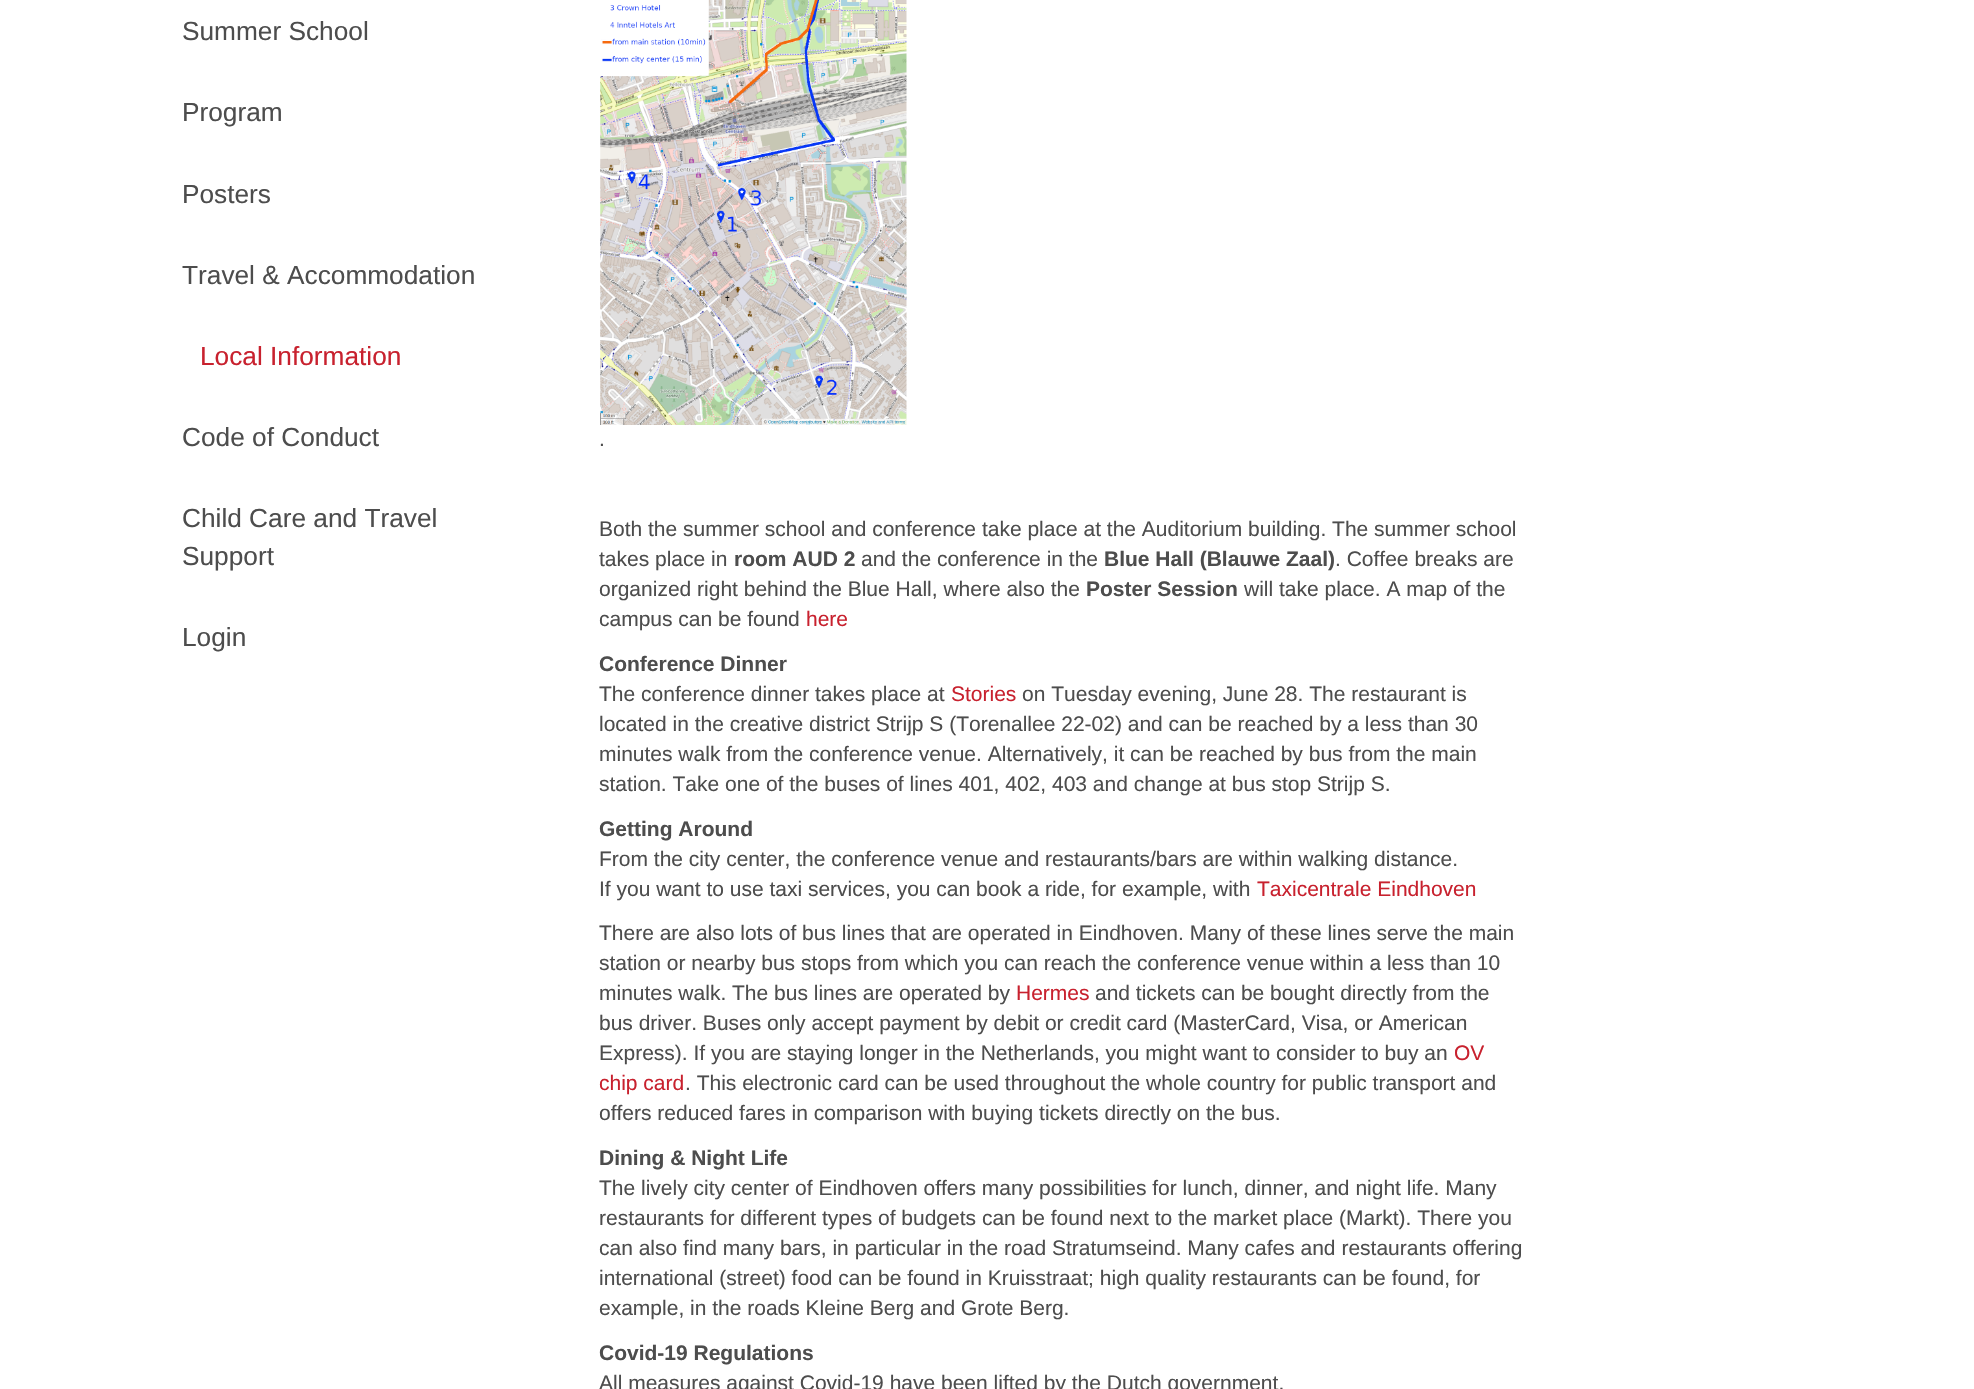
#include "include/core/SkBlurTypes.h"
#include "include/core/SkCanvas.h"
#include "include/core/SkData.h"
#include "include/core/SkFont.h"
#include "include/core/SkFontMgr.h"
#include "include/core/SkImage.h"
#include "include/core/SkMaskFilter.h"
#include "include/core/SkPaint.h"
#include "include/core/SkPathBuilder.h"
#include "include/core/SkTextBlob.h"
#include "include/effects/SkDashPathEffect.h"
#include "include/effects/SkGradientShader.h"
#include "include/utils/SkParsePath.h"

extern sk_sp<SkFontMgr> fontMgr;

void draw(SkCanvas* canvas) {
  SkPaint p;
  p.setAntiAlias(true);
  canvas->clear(SK_ColorWHITE);
  canvas->drawImageRect(SkImages::DeferredFromEncodedData(SkData::MakeFromFileName("images/1.png")), SkRect::MakeLTRB(600, 0, 907, 425), SkSamplingOptions());
  SkFont font1(fontMgr->matchFamilyStyle("Liberation Sans", SkFontStyle::Normal()), 26.25f);
  font1.setSubpixel(true);
  p.setColor(SkColorSetRGB(77, 77, 77));
  canvas->drawString("Summer School", 182, 40, font1, p);
  canvas->drawString("Program", 182, 121, font1, p);
  canvas->drawString("Posters", 182, 203, font1, p);
  canvas->drawString("Travel & Accommodation", 182, 284, font1, p);
  p.setColor(SkColorSetRGB(200, 33, 46));
  canvas->drawString("Local Information", 200, 365, font1, p);
  p.setColor(SkColorSetRGB(77, 77, 77));
  canvas->drawString("Code of Conduct", 182, 446, font1, p);
  canvas->drawString("Child Care and Travel", 182, 527, font1, p);
  canvas->drawString("Support", 182, 565, font1, p);
  canvas->drawString("Login", 182, 646, font1, p);
  SkFont font2(fontMgr->matchFamilyStyle("Liberation Sans", SkFontStyle::Normal()), 21);
  font2.setSubpixel(true);
  canvas->drawString(".", 599, 446, font2, p);
  canvas->drawString("Both the summer school and conference take place at the Auditorium building. The summer school", 599, 536, font2, p);
  canvas->drawString("takes place in", 599, 566, font2, p);
  SkFont font3(fontMgr->matchFamilyStyle("Liberation Sans", SkFontStyle::Bold()), 21);
  font3.setSubpixel(true);
  canvas->drawString("room AUD 2", 734, 566, font3, p);
  canvas->drawString("and the conference in the", 861, 566, font2, p);
  canvas->drawString("Blue Hall (Blauwe Zaal)", 1104, 566, font3, p);
  canvas->drawString(". Coffee breaks are", 1335, 566, font2, p);
  canvas->drawString("organized right behind the Blue Hall, where also the", 599, 596, font2, p);
  canvas->drawString("Poster Session", 1086, 596, font3, p);
  canvas->drawString("will take place. A map of the", 1244, 596, font2, p);
  canvas->drawString("campus can be found", 599, 626, font2, p);
  p.setColor(SkColorSetRGB(200, 33, 46));
  canvas->drawString("here", 806, 626, font2, p);
  p.setColor(SkColorSetRGB(77, 77, 77));
  canvas->drawString("Conference Dinner", 599, 671, font3, p);
  canvas->drawString("The conference dinner takes place at", 599, 701, font2, p);
  p.setColor(SkColorSetRGB(200, 33, 46));
  canvas->drawString("Stories", 951, 701, font2, p);
  p.setColor(SkColorSetRGB(77, 77, 77));
  canvas->drawString("on Tuesday evening, June 28. The restaurant is", 1022, 701, font2, p);
  canvas->drawString("located in the creative district Strijp S (Torenallee 22-02) and can be reached by a less than 30", 599, 731, font2, p);
  canvas->drawString("minutes walk from the conference venue. Alternatively, it can be reached by bus from the main", 599, 761, font2, p);
  canvas->drawString("station. Take one of the buses of lines 401, 402, 403 and change at bus stop Strijp S.", 599, 791, font2, p);
  canvas->drawString("Getting Around", 599, 836, font3, p);
  canvas->drawString("From the city center, the conference venue and restaurants/bars are within walking distance.", 599, 866, font2, p);
  canvas->drawString("If you want to use taxi services, you can book a ride, for example, with", 599, 896, font2, p);
  p.setColor(SkColorSetRGB(200, 33, 46));
  canvas->drawString("Taxicentrale Eindhoven", 1257, 896, font2, p);
  p.setColor(SkColorSetRGB(77, 77, 77));
  canvas->drawString("There are also lots of bus lines that are operated in Eindhoven. Many of these lines serve the main", 599, 940, font2, p);
  canvas->drawString("station or nearby bus stops from which you can reach the conference venue within a less than 10", 599, 970, font2, p);
  canvas->drawString("minutes walk. The bus lines are operated by", 599, 1000, font2, p);
  p.setColor(SkColorSetRGB(200, 33, 46));
  canvas->drawString("Hermes", 1016, 1000, font2, p);
  p.setColor(SkColorSetRGB(77, 77, 77));
  canvas->drawString("and tickets can be bought directly from the", 1095, 1000, font2, p);
  canvas->drawString("bus driver. Buses only accept payment by debit or credit card (MasterCard, Visa, or American", 599, 1030, font2, p);
  canvas->drawString("Express). If you are staying longer in the Netherlands, you might want to consider to buy an", 599, 1060, font2, p);
  p.setColor(SkColorSetRGB(200, 33, 46));
  canvas->drawString("OV", 1454, 1060, font2, p);
  canvas->drawString("chip card", 599, 1090, font2, p);
  p.setColor(SkColorSetRGB(77, 77, 77));
  canvas->drawString(". This electronic card can be used throughout the whole country for public transport and", 685, 1090, font2, p);
  canvas->drawString("offers reduced fares in comparison with buying tickets directly on the bus.", 599, 1120, font2, p);
  canvas->drawString("Dining & Night Life", 599, 1165, font3, p);
  canvas->drawString("The lively city center of Eindhoven offers many possibilities for lunch, dinner, and night life. Many", 599, 1195, font2, p);
  canvas->drawString("restaurants for different types of budgets can be found next to the market place (Markt). There you", 599, 1225, font2, p);
  canvas->drawString("can also find many bars, in particular in the road Stratumseind. Many cafes and restaurants offering", 599, 1255, font2, p);
  canvas->drawString("international (street) food can be found in Kruisstraat; high quality restaurants can be found, for", 599, 1285, font2, p);
  canvas->drawString("example, in the roads Kleine Berg and Grote Berg.", 599, 1315, font2, p);
  canvas->drawString("Covid-19 Regulations", 599, 1360, font3, p);
  canvas->drawString("All measures against Covid-19 have been lifted by the Dutch government.", 599, 1390, font2, p);
}
